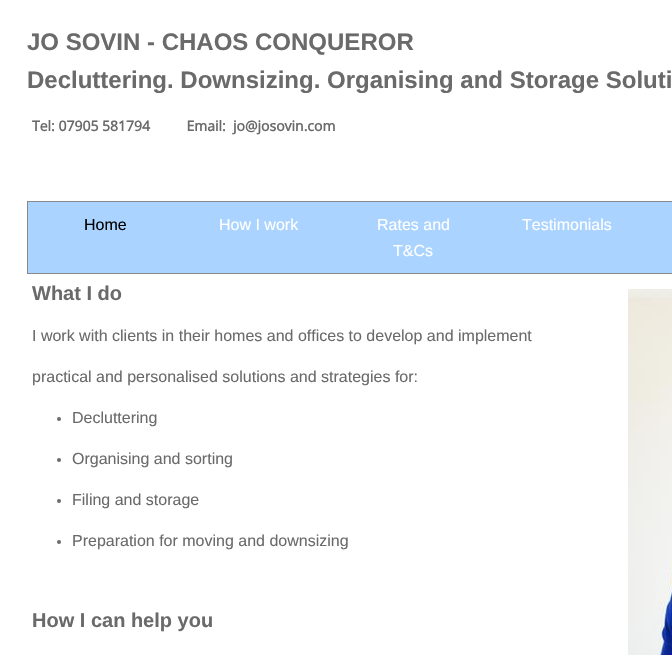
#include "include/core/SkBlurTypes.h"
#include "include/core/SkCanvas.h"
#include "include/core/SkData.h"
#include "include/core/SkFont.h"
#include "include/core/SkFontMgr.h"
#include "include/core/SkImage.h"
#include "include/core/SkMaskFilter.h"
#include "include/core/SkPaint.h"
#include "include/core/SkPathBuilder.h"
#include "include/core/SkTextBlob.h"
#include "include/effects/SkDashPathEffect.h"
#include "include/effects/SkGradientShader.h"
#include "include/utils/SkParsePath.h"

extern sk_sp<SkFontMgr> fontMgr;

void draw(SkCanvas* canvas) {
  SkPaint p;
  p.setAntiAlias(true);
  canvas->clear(SK_ColorWHITE);
  p.setStyle(SkPaint::kStroke_Style);
  p.setStrokeWidth(1);
  p.setColor(SkColorSetRGB(136, 136, 136));
  canvas->drawRect(SkRect::MakeLTRB(27.5f, 201.5f, 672.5f, 273.5f), p);
  p.setStyle(SkPaint::kFill_Style);
  p.setColor(SkColorSetRGB(170, 212, 255));
  canvas->drawRect(SkRect::MakeLTRB(28, 202, 672, 273), p);
  p.setColor(SkColorSetRGB(106, 106, 106));
  canvas->drawCircle(59, 419, 2, p);
  canvas->drawCircle(59, 460, 2, p);
  canvas->drawCircle(59, 501, 2, p);
  canvas->drawCircle(59, 542, 2, p);
  canvas->drawImageRect(SkImages::DeferredFromEncodedData(SkData::MakeFromFileName("images/1.png")), SkRect::MakeLTRB(628, 289, 672, 655), SkSamplingOptions());
  SkFont font1(fontMgr->matchFamilyStyle("Liberation Sans", SkFontStyle::Bold()), 24);
  font1.setSubpixel(true);
  canvas->drawString("JO SOVIN - CHAOS CONQUEROR", 27, 50, font1, p);
  canvas->drawString("Decluttering. Downsizing. Organising and Storage Soluti", 27, 88, font1, p);
  SkFont font2(fontMgr->matchFamilyStyle("Open Sans", SkFontStyle::Bold()), 14);
  font2.setSubpixel(true);
  canvas->drawString("Tel: 07905 581794          Email:  jo@josovin.com", 32, 131, font2, p);
  SkFont font3(fontMgr->matchFamilyStyle("Liberation Sans", SkFontStyle::Normal()), 16);
  font3.setSubpixel(true);
  p.setColor(SK_ColorBLACK);
  canvas->drawString("Home", 84, 230, font3, p);
  p.setColor(SK_ColorWHITE);
  canvas->drawString("How I work", 219, 230, font3, p);
  canvas->drawString("Rates and", 377, 230, font3, p);
  canvas->drawString("T&Cs", 393, 256, font3, p);
  canvas->drawString("Testimonials", 522, 230, font3, p);
  SkFont font4(fontMgr->matchFamilyStyle("Liberation Sans", SkFontStyle::Bold()), 20);
  font4.setSubpixel(true);
  p.setColor(SkColorSetRGB(106, 106, 106));
  canvas->drawString("What I do", 32, 300, font4, p);
  canvas->drawString("I work with clients in their homes and offices to develop and implement", 32, 341, font3, p);
  canvas->drawString("practical and personalised solutions and strategies for:", 32, 382, font3, p);
  canvas->drawString("Decluttering", 72, 423, font3, p);
  canvas->drawString("Organising and sorting", 72, 464, font3, p);
  canvas->drawString("Filing and storage", 72, 505, font3, p);
  canvas->drawString("Preparation for moving and downsizing", 72, 546, font3, p);
  canvas->drawString("How I can help you", 32, 627, font4, p);
}
